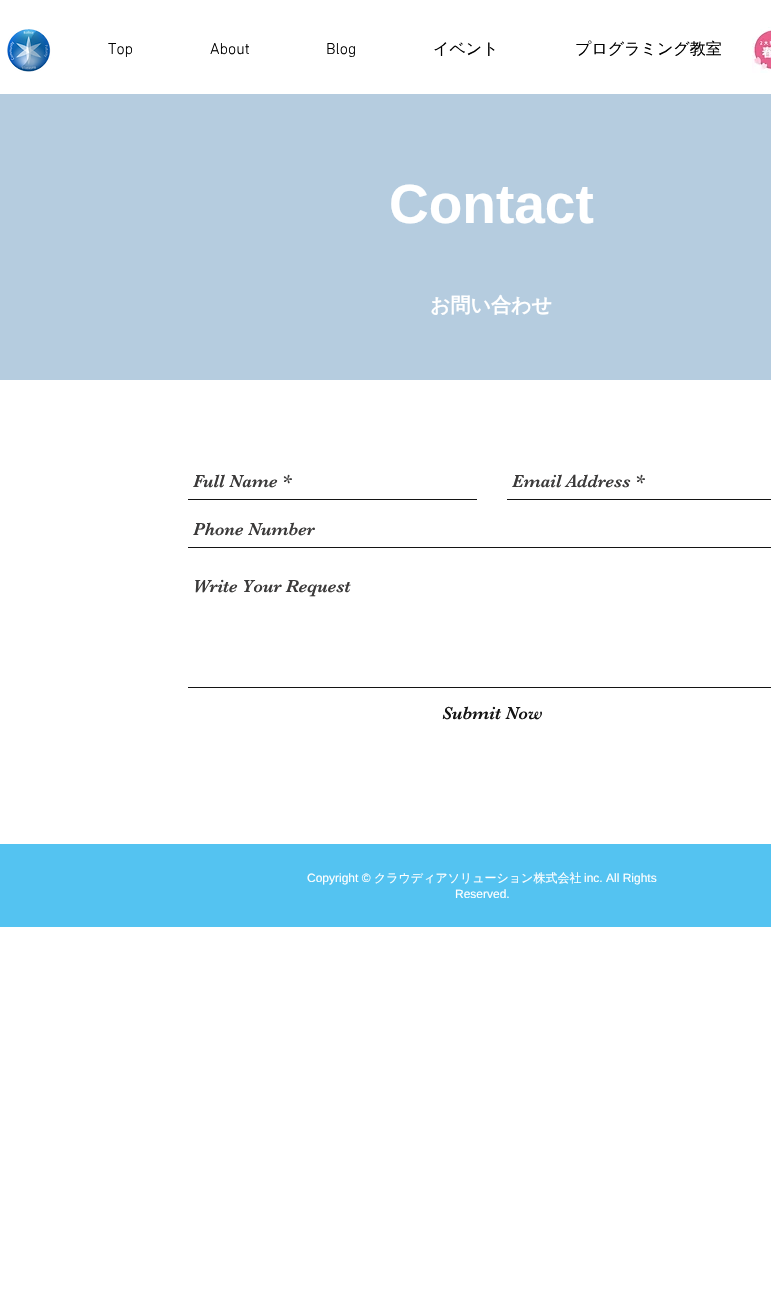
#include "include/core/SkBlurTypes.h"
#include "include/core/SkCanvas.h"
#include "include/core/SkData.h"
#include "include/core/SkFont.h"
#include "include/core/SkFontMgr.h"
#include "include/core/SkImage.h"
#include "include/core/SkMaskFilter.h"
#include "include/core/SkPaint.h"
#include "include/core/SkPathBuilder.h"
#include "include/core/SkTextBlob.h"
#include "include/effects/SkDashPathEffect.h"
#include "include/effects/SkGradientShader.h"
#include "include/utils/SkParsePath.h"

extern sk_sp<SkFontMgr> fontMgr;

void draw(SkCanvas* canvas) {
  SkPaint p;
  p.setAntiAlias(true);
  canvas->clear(SK_ColorWHITE);
  canvas->drawImageRect(SkImages::DeferredFromEncodedData(SkData::MakeFromFileName("images/1.png")), SkRect::MakeLTRB(7, 29, 51, 72), SkSamplingOptions());
  canvas->drawImageRect(SkImages::DeferredFromEncodedData(SkData::MakeFromFileName("images/2.png")), SkRect::MakeLTRB(752, 27, 771, 73), SkSamplingOptions());
  p.setColor(SkColorSetRGB(181, 204, 223));
  canvas->drawRect(SkRect::MakeLTRB(0, 94, 771, 380), p);
  p.setColor(SkColorSetRGB(20, 20, 20));
  canvas->drawRect(SkRect::MakeLTRB(188, 499, 477, 500), p);
  canvas->drawRect(SkRect::MakeLTRB(507, 499, 771, 500), p);
  canvas->drawRect(SkRect::MakeLTRB(188, 547, 771, 548), p);
  canvas->drawRect(SkRect::MakeLTRB(188, 687, 771, 688), p);
  p.setColor(SkColorSetRGB(84, 195, 241));
  canvas->drawRect(SkRect::MakeLTRB(0, 844, 771, 927), p);
  SkFont font1(fontMgr->matchFamilyStyle("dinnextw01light", SkFontStyle(300, SkFontStyle::kNormal_Width, SkFontStyle::kUpright_Slant)), 16);
  font1.setSubpixel(true);
  p.setColor(SK_ColorBLACK);
  canvas->drawString("Top", 108, 54, font1, p);
  canvas->drawString("About", 210, 54, font1, p);
  canvas->drawString("Blog", 326, 54, font1, p);
  SkFont font2(fontMgr->matchFamilyStyle("WenQuanYi Zen Hei", SkFontStyle(500, SkFontStyle::kNormal_Width, SkFontStyle::kUpright_Slant)), 16);
  font2.setSubpixel(true);
  canvas->drawString("イベント", 433, 54, font2, p);
  canvas->drawString("プログラミング教室", 575, 54, font2, p);
  SkFont font3(fontMgr->matchFamilyStyle("Liberation Sans", SkFontStyle::Bold()), 55);
  font3.setSubpixel(true);
  p.setColor(SK_ColorWHITE);
  canvas->drawString("Contact", 389, 223, font3, p);
  SkFont font4(fontMgr->matchFamilyStyle("WenQuanYi Zen Hei", SkFontStyle::Bold()), 20);
  font4.setSubpixel(true);
  canvas->drawString("お問い合わせ", 430, 312, font4, p);
  SkFont font5(fontMgr->matchFamilyStyle("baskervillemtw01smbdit", SkFontStyle::Normal()), 18);
  font5.setSubpixel(true);
  p.setColor(SkColorSetRGB(59, 58, 58));
  canvas->drawString("Full Name *", 193, 487, font5, p);
  canvas->drawString("Email Address *", 512, 487, font5, p);
  canvas->drawString("Phone Number", 193, 535, font5, p);
  canvas->drawString("Write Your Request", 193, 592, font5, p);
  p.setColor(SkColorSetRGB(20, 20, 20));
  canvas->drawString("Submit Now", 442, 719, font5, p);
  SkFont font6(fontMgr->matchFamilyStyle("Liberation Sans", SkFontStyle::Normal()), 12);
  font6.setSubpixel(true);
  p.setColor(SK_ColorWHITE);
  canvas->drawString("Copyright ©", 307, 882, font6, p);
  SkFont font7(fontMgr->matchFamilyStyle("WenQuanYi Zen Hei", SkFontStyle(500, SkFontStyle::kNormal_Width, SkFontStyle::kUpright_Slant)), 12);
  font7.setSubpixel(true);
  canvas->drawString("クラウディアソリューション株式会社", 374, 882, font7, p);
  canvas->drawString("inc. All Rights", 584, 882, font6, p);
  canvas->drawString("Reserved.", 455, 898, font6, p);
}
